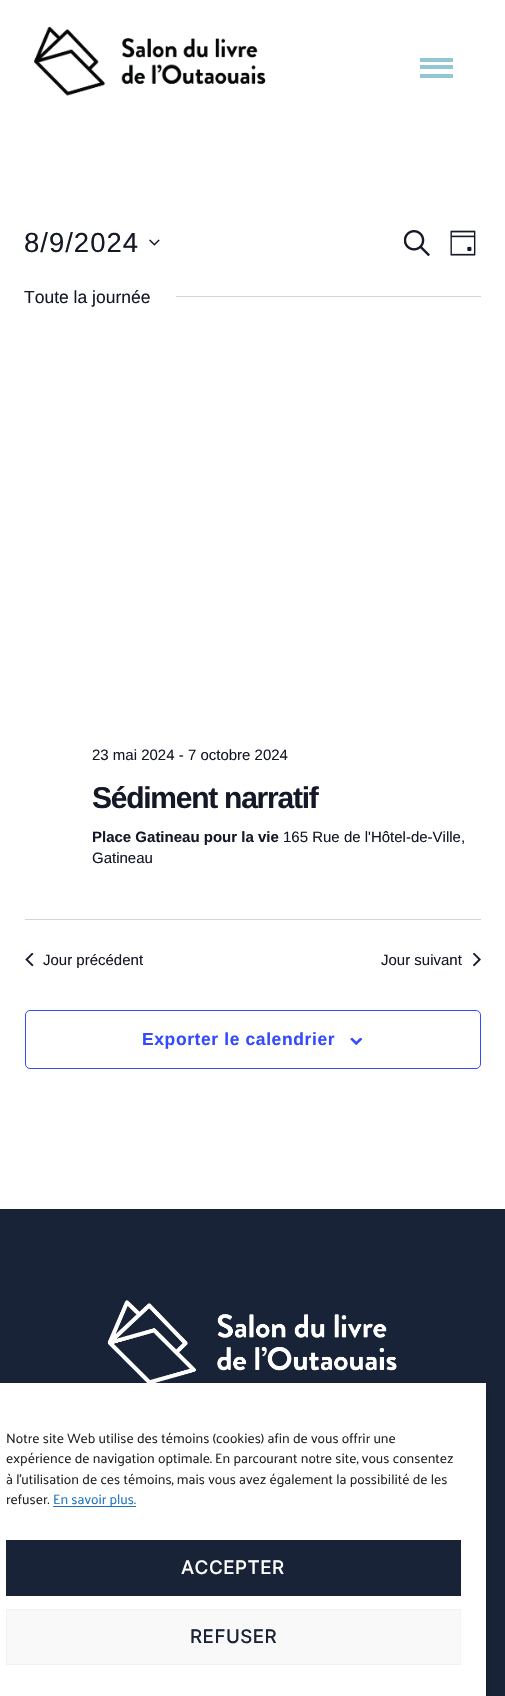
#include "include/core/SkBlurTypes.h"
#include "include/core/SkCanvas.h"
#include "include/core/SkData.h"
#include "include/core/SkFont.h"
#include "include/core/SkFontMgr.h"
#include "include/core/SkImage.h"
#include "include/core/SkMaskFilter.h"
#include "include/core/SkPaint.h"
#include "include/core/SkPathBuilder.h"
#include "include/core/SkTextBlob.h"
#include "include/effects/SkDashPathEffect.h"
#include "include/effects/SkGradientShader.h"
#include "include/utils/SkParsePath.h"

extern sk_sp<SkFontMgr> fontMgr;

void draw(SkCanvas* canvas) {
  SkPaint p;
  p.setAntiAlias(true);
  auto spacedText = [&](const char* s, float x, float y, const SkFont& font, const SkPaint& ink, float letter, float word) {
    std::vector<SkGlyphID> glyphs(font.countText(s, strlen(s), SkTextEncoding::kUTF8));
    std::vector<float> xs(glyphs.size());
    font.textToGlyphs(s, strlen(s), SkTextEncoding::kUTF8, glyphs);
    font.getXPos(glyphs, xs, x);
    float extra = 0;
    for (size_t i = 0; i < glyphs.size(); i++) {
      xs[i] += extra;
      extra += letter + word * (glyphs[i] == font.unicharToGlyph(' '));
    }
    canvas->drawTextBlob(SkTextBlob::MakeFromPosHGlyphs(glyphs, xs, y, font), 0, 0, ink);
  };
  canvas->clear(SK_ColorWHITE);
  canvas->drawImageRect(SkImages::DeferredFromEncodedData(SkData::MakeFromFileName("images/1.png")), SkRect::MakeLTRB(34, 26, 266, 96), SkSamplingOptions());
  p.setColor(SkColorSetRGB(145, 198, 210));
  canvas->drawRect(SkRect::MakeLTRB(420, 58, 453, 62), p);
  canvas->drawRect(SkRect::MakeLTRB(420, 65, 453, 69), p);
  canvas->drawRect(SkRect::MakeLTRB(420, 74, 453, 78), p);
  canvas->drawImageRect(SkImages::DeferredFromEncodedData(SkData::MakeFromFileName("images/2.png")), SkRect::MakeLTRB(149, 239, 160, 246), SkSamplingOptions());
  canvas->drawImageRect(SkImages::DeferredFromEncodedData(SkData::MakeFromFileName("images/3.png")), SkRect::MakeLTRB(404, 230, 430, 256), SkSamplingOptions());
  canvas->drawImageRect(SkImages::DeferredFromEncodedData(SkData::MakeFromFileName("images/4.png")), SkRect::MakeLTRB(450, 230, 476, 256), SkSamplingOptions());
  p.setColor(SkColorSetRGB(213, 213, 213));
  canvas->drawRect(SkRect::MakeLTRB(176, 296, 481, 297), p);
  canvas->drawRect(SkRect::MakeLTRB(25, 919, 481, 920), p);
  canvas->drawImageRect(SkImages::DeferredFromEncodedData(SkData::MakeFromFileName("images/5.png")), SkRect::MakeLTRB(25, 953, 34, 967), SkSamplingOptions());
  canvas->drawImageRect(SkImages::DeferredFromEncodedData(SkData::MakeFromFileName("images/6.png")), SkRect::MakeLTRB(473, 953, 481, 967), SkSamplingOptions());
  p.setStyle(SkPaint::kStroke_Style);
  p.setStrokeWidth(1);
  p.setColor(SkColorSetRGB(51, 74, 255));
  canvas->drawRoundRect(SkRect::MakeLTRB(25.5f, 1010.5f, 480.5f, 1068.5f), 4.5f, 4.5f, p);
  canvas->drawImageRect(SkImages::DeferredFromEncodedData(SkData::MakeFromFileName("images/7.png")), SkRect::MakeLTRB(350, 1038, 363, 1045), SkSamplingOptions());
  p.setStyle(SkPaint::kFill_Style);
  p.setColor(SkColorSetRGB(25, 35, 55));
  canvas->drawRect(SkRect::MakeLTRB(0, 1209, 505, 1696), p);
  canvas->drawImageRect(SkImages::DeferredFromEncodedData(SkData::MakeFromFileName("images/8.png")), SkRect::MakeLTRB(107, 1300, 397, 1383), SkSamplingOptions());
  p.setColor(SkColorSetARGB(59, 0, 0, 0));
  p.setMaskFilter(SkMaskFilter::MakeBlur(kNormal_SkBlurStyle, 4));
  canvas->drawRect(SkRect::MakeLTRB(-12, 1390, 486, 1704), p);
  p.setMaskFilter(nullptr);
  p.setColor(SK_ColorWHITE);
  canvas->drawRect(SkRect::MakeLTRB(0, 1383, 486, 1696), p);
  p.setColor(SkColorSetRGB(30, 115, 190));
  canvas->drawRect(SkRect::MakeLTRB(53, 1506, 136, 1507), p);
  p.setColor(SkColorSetRGB(25, 35, 55));
  canvas->drawRect(SkRect::MakeLTRB(6, 1540, 461, 1596), p);
  p.setColor(SkColorSetRGB(249, 249, 249));
  canvas->drawRect(SkRect::MakeLTRB(6.5f, 1609.5f, 460.5f, 1664.5f), p);
  p.setStyle(SkPaint::kStroke_Style);
  p.setColor(SkColorSetRGB(242, 242, 242));
  canvas->drawRect(SkRect::MakeLTRB(6.5f, 1609.5f, 460.5f, 1664.5f), p);
  SkFont font1(fontMgr->matchFamilyStyle("Liberation Sans", SkFontStyle::Normal()), 27.5f);
  font1.setSubpixel(true);
  p.setStyle(SkPaint::kFill_Style);
  p.setColor(SkColorSetRGB(20, 24, 39));
  spacedText("8/9/2024", 24, 252, font1, p, 1, 0);
  SkFont font2(fontMgr->matchFamilyStyle("Liberation Sans", SkFontStyle::Normal()), 17.5f);
  font2.setSubpixel(true);
  canvas->drawString("Toute la journée", 24, 303, font2, p);
  SkFont font3(fontMgr->matchFamilyStyle("Liberation Sans", SkFontStyle::Normal()), 15);
  font3.setSubpixel(true);
  canvas->drawString("23 mai 2024 - 7 octobre 2024", 92, 760, font3, p);
  SkFont font4(fontMgr->matchFamilyStyle("Liberation Sans", SkFontStyle::Bold()), 30);
  font4.setSubpixel(true);
  spacedText("Sédiment narratif", 92, 808, font4, p, -1.25f, 0);
  SkFont font5(fontMgr->matchFamilyStyle("Liberation Sans", SkFontStyle::Bold()), 15);
  font5.setSubpixel(true);
  canvas->drawString("Place Gatineau pour la vie", 92, 842, font5, p);
  canvas->drawString("165 Rue de l'Hôtel-de-Ville,", 283, 842, font3, p);
  canvas->drawString("Gatineau", 92, 863, font3, p);
  canvas->drawString("Jour précédent", 43, 965, font3, p);
  canvas->drawString("Jour suivant", 381, 965, font3, p);
  SkFont font6(fontMgr->matchFamilyStyle("Liberation Sans", SkFontStyle::Bold()), 17.5f);
  font6.setSubpixel(true);
  p.setColor(SkColorSetRGB(51, 74, 255));
  spacedText("Exporter le calendrier", 142, 1045, font6, p, 0.6f, 0);
  SkFont font7(fontMgr->matchFamilyStyle("Palanquin", SkFontStyle::Normal()), 13.75f);
  font7.setSubpixel(true);
  p.setColor(SkColorSetRGB(34, 34, 34));
  canvas->drawString("Notre site Web utilise des témoins (cookies) afin de vous offrir une", 6, 1443, font7, p);
  canvas->drawString("expérience de navigation optimale. En parcourant notre site, vous consentez", 6, 1463, font7, p);
  canvas->drawString("à l'utilisation de ces témoins, mais vous avez également la possibilité de les", 6, 1484, font7, p);
  canvas->drawString("refuser.", 6, 1504, font7, p);
  p.setColor(SkColorSetRGB(30, 115, 190));
  canvas->drawString("En savoir plus.", 53, 1504, font7, p);
  SkFont font8(fontMgr->matchFamilyStyle("Inter", SkFontStyle(500, SkFontStyle::kNormal_Width, SkFontStyle::kUpright_Slant)), 18.75f);
  font8.setSubpixel(true);
  p.setColor(SK_ColorWHITE);
  spacedText("ACCEPTER", 181, 1574, font8, p, 0.5f, 0);
  p.setColor(SkColorSetRGB(25, 35, 55));
  spacedText("REFUSER", 190, 1643, font8, p, 0.5f, 0);
}
